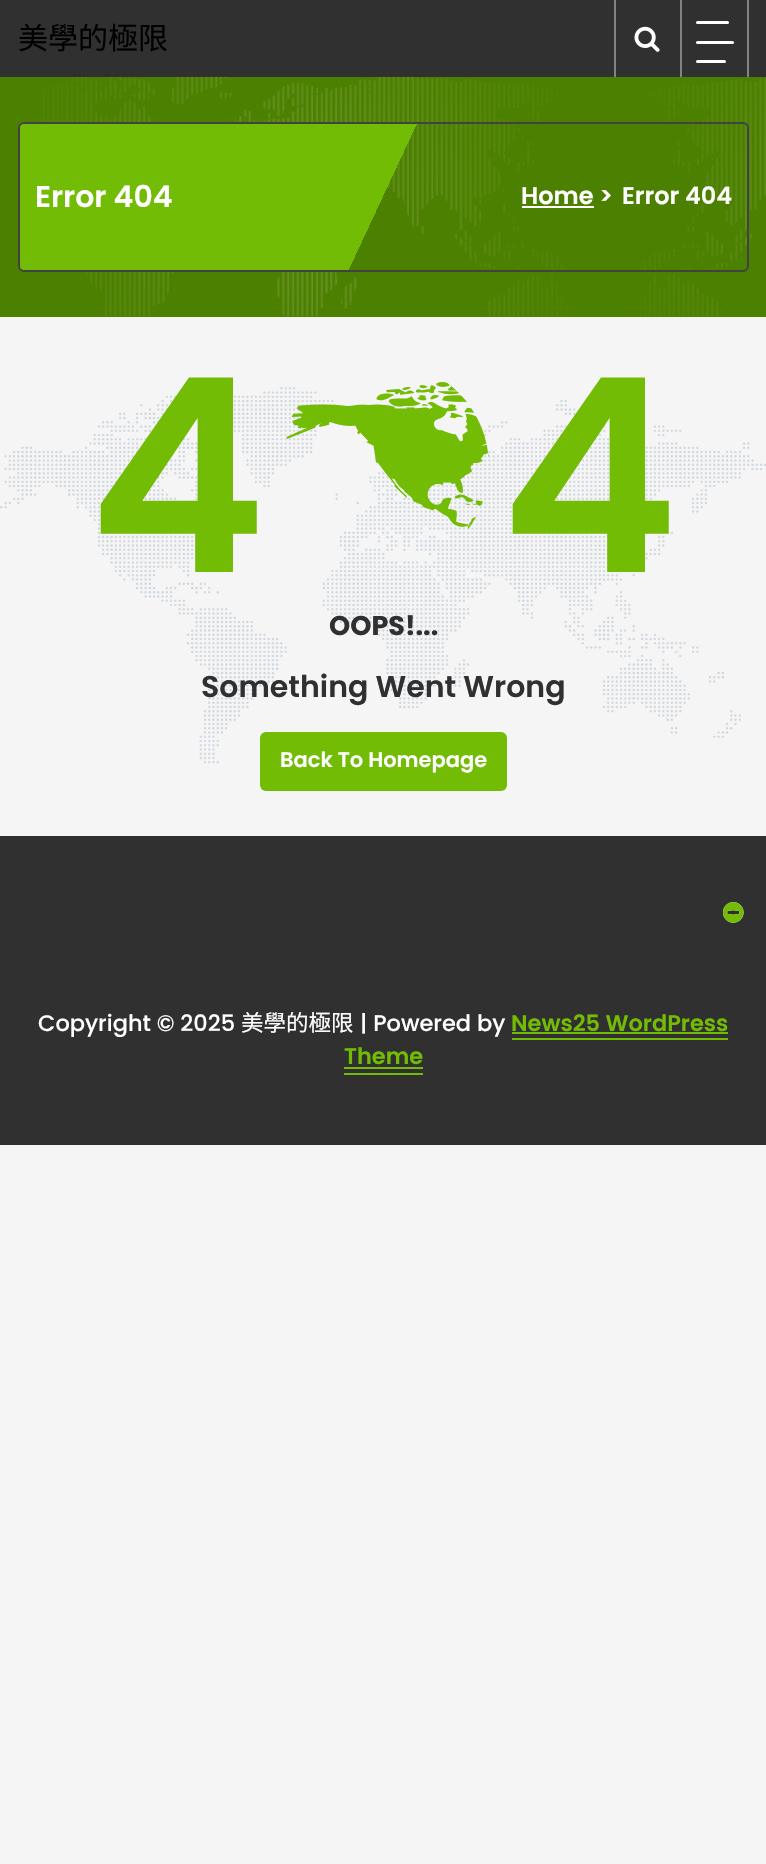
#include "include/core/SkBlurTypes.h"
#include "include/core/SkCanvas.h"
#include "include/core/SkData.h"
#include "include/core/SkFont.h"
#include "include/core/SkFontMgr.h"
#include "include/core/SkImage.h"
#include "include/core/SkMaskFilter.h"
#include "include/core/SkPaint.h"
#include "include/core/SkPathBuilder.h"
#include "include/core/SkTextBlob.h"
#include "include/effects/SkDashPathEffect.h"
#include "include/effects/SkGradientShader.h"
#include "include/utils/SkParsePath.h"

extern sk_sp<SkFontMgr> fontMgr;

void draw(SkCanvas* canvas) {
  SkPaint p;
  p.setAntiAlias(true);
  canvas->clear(SkColorSetRGB(245, 245, 245));
  p.setColor(SkColorSetRGB(48, 48, 48));
  canvas->drawRect(SkRect::MakeLTRB(0, 0, 766, 77), p);
  p.setColor(SkColorSetRGB(76, 128, 0));
  canvas->drawRect(SkRect::MakeLTRB(0, 77, 766, 317), p);
  canvas->drawImageRect(SkImages::DeferredFromEncodedData(SkData::MakeFromFileName("images/2.png")), SkRect::MakeLTRB(43, 76, 766, 317), SkSamplingOptions());
  p.setColor(SkColorSetRGB(131, 131, 131));
  canvas->drawRect(SkRect::MakeLTRB(680, 0, 682, 77), p);
  canvas->drawRect(SkRect::MakeLTRB(614, 0, 616, 77), p);
  canvas->drawImageRect(SkImages::DeferredFromEncodedData(SkData::MakeFromFileName("images/1.png")), SkRect::MakeLTRB(634, 26, 660, 52), SkSamplingOptions());
  canvas->drawRect(SkRect::MakeLTRB(747, 0, 749, 77), p);
  p.setColor(SK_ColorWHITE);
  canvas->drawRoundRect(SkRect::MakeLTRB(696, 21, 729, 24), 1.5f, 1.5f, p);
  canvas->drawRoundRect(SkRect::MakeLTRB(696, 41, 734, 44), 1.5f, 1.5f, p);
  canvas->drawRoundRect(SkRect::MakeLTRB(696, 60, 726, 63), 1.5f, 1.5f, p);
  {
    const SkColor colors[] = {SkColorSetRGB(114, 188, 5), SkColorSetARGB(0, 114, 188, 5)};
    const float stops[] = {0.5f, 0.5f};
    const SkPoint ends[] = {{56, 44}, {710, 349}};
    p.setShader(SkGradientShader::MakeLinear(ends, colors, stops, 2, SkTileMode::kClamp));
    p.setAlpha(255);
  }
  canvas->drawRect(SkRect::MakeLTRB(20, 123, 417, 270), p);
  canvas->save();
  canvas->clipPath(SkPathBuilder().moveTo(24, 122).lineTo(743, 122).cubicTo(746.5f, 122, 749, 124.5f, 749, 128).lineTo(749, 266).cubicTo(749, 269.5f, 746.5f, 272, 743, 272).lineTo(24, 272).cubicTo(20.5f, 272, 18, 269.5f, 18, 266).lineTo(18, 128).cubicTo(18, 124.5f, 20.5f, 122, 24, 122).close().detach(), true);
  {
    const SkColor colors[] = {SkColorSetRGB(114, 188, 5), SkColorSetRGB(76, 128, 0)};
    const float stops[] = {0.5f, 0.5f};
    const SkPoint ends[] = {{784, 191}, {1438, 496}};
    p.setShader(SkGradientShader::MakeLinear(ends, colors, stops, 2, SkTileMode::kClamp));
    p.setAlpha(255);
  }
  canvas->drawRect(SkRect::MakeLTRB(747, 270, 749, 271), p);
  canvas->restore();
  p.setStyle(SkPaint::kStroke_Style);
  p.setStrokeWidth(2);
  p.setShader(nullptr);
  p.setColor(SkColorSetRGB(66, 66, 66));
  canvas->drawRoundRect(SkRect::MakeLTRB(19, 123, 748, 271), 5, 5, p);
  p.setStyle(SkPaint::kFill_Style);
  p.setColor(SK_ColorWHITE);
  canvas->drawRect(SkRect::MakeLTRB(522, 206, 594, 208), p);
  canvas->drawImageRect(SkImages::DeferredFromEncodedData(SkData::MakeFromFileName("images/3.png")), SkRect::MakeLTRB(0, 387, 766, 764), SkSamplingOptions());
  canvas->drawImageRect(SkImages::DeferredFromEncodedData(SkData::MakeFromFileName("images/4.png")), SkRect::MakeLTRB(286, 382, 489, 529), SkSamplingOptions());
  canvas->drawImageRect(SkImages::DeferredFromEncodedData(SkData::MakeFromFileName("images/5.png")), SkRect::MakeLTRB(286, 382, 489, 529), SkSamplingOptions());
  p.setColor(SkColorSetRGB(114, 188, 5));
  canvas->drawRoundRect(SkRect::MakeLTRB(260, 732, 507, 791), 6, 6, p);
  p.setColor(SkColorSetRGB(48, 48, 48));
  canvas->drawRect(SkRect::MakeLTRB(0, 836, 766, 1145), p);
  canvas->drawImageRect(SkImages::DeferredFromEncodedData(SkData::MakeFromFileName("images/6.png")), SkRect::MakeLTRB(723, 902, 744, 923), SkSamplingOptions());
  canvas->drawImageRect(SkImages::DeferredFromEncodedData(SkData::MakeFromFileName("images/7.png")), SkRect::MakeLTRB(723, 902, 744, 923), SkSamplingOptions());
  p.setColor(SkColorSetRGB(114, 188, 5));
  canvas->drawRect(SkRect::MakeLTRB(512, 1038, 728, 1040), p);
  canvas->drawRect(SkRect::MakeLTRB(512, 1032, 728, 1034), p);
  canvas->drawRect(SkRect::MakeLTRB(344, 1073, 423, 1075), p);
  canvas->drawRect(SkRect::MakeLTRB(344, 1067, 423, 1069), p);
  SkFont font1(fontMgr->matchFamilyStyle("Noto Sans CJK TC", SkFontStyle::Normal()), 30);
  font1.setSubpixel(true);
  p.setColor(SK_ColorBLACK);
  canvas->drawString("美學的極限", 18, 49, font1, p);
  SkFont font2(fontMgr->matchFamilyStyle("Poppins", SkFontStyle(600, SkFontStyle::kNormal_Width, SkFontStyle::kUpright_Slant)), 30);
  font2.setSubpixel(true);
  p.setColor(SK_ColorWHITE);
  canvas->drawString("Error 404", 35, 207, font2, p);
  SkFont font3(fontMgr->matchFamilyStyle("Poppins", SkFontStyle(600, SkFontStyle::kNormal_Width, SkFontStyle::kUpright_Slant)), 24);
  font3.setSubpixel(true);
  canvas->drawString("Home >", 521, 204, font3, p);
  canvas->drawString("Error 404", 622, 204, font3, p);
  SkFont font4(fontMgr->matchFamilyStyle("Poppins", SkFontStyle(600, SkFontStyle::kNormal_Width, SkFontStyle::kUpright_Slant)), 270);
  font4.setSubpixel(true);
  p.setColor(SkColorSetRGB(114, 188, 5));
  canvas->drawString("4", 88, 572, font4, p);
  canvas->drawString("4", 500, 572, font4, p);
  SkFont font5(fontMgr->matchFamilyStyle("Poppins", SkFontStyle::Bold()), 27);
  font5.setSubpixel(true);
  p.setColor(SkColorSetRGB(48, 48, 48));
  canvas->drawString("OOPS!...", 329, 635, font5, p);
  canvas->drawString("Something Went Wrong", 201, 697, font2, p);
  SkFont font6(fontMgr->matchFamilyStyle("Poppins", SkFontStyle(600, SkFontStyle::kNormal_Width, SkFontStyle::kUpright_Slant)), 21);
  font6.setSubpixel(true);
  p.setColor(SK_ColorWHITE);
  canvas->drawString("Back To Homepage", 280, 767, font6, p);
  SkFont font7(fontMgr->matchFamilyStyle("Poppins", SkFontStyle(500, SkFontStyle::kNormal_Width, SkFontStyle::kUpright_Slant)), 22.5f);
  font7.setSubpixel(true);
  canvas->drawString("Copyright © 2025", 38, 1031, font7, p);
  SkFont font8(fontMgr->matchFamilyStyle("Noto Sans CJK TC", SkFontStyle::Normal()), 22.5f);
  font8.setSubpixel(true);
  canvas->drawString("美學的極限", 241, 1031, font8, p);
  canvas->drawString("| Powered by", 360, 1031, font7, p);
  SkFont font9(fontMgr->matchFamilyStyle("Poppins", SkFontStyle(600, SkFontStyle::kNormal_Width, SkFontStyle::kUpright_Slant)), 22.5f);
  font9.setSubpixel(true);
  p.setColor(SkColorSetRGB(114, 188, 5));
  canvas->drawString("News25 WordPress", 511, 1031, font9, p);
  canvas->drawString("Theme", 344, 1064, font9, p);
}
